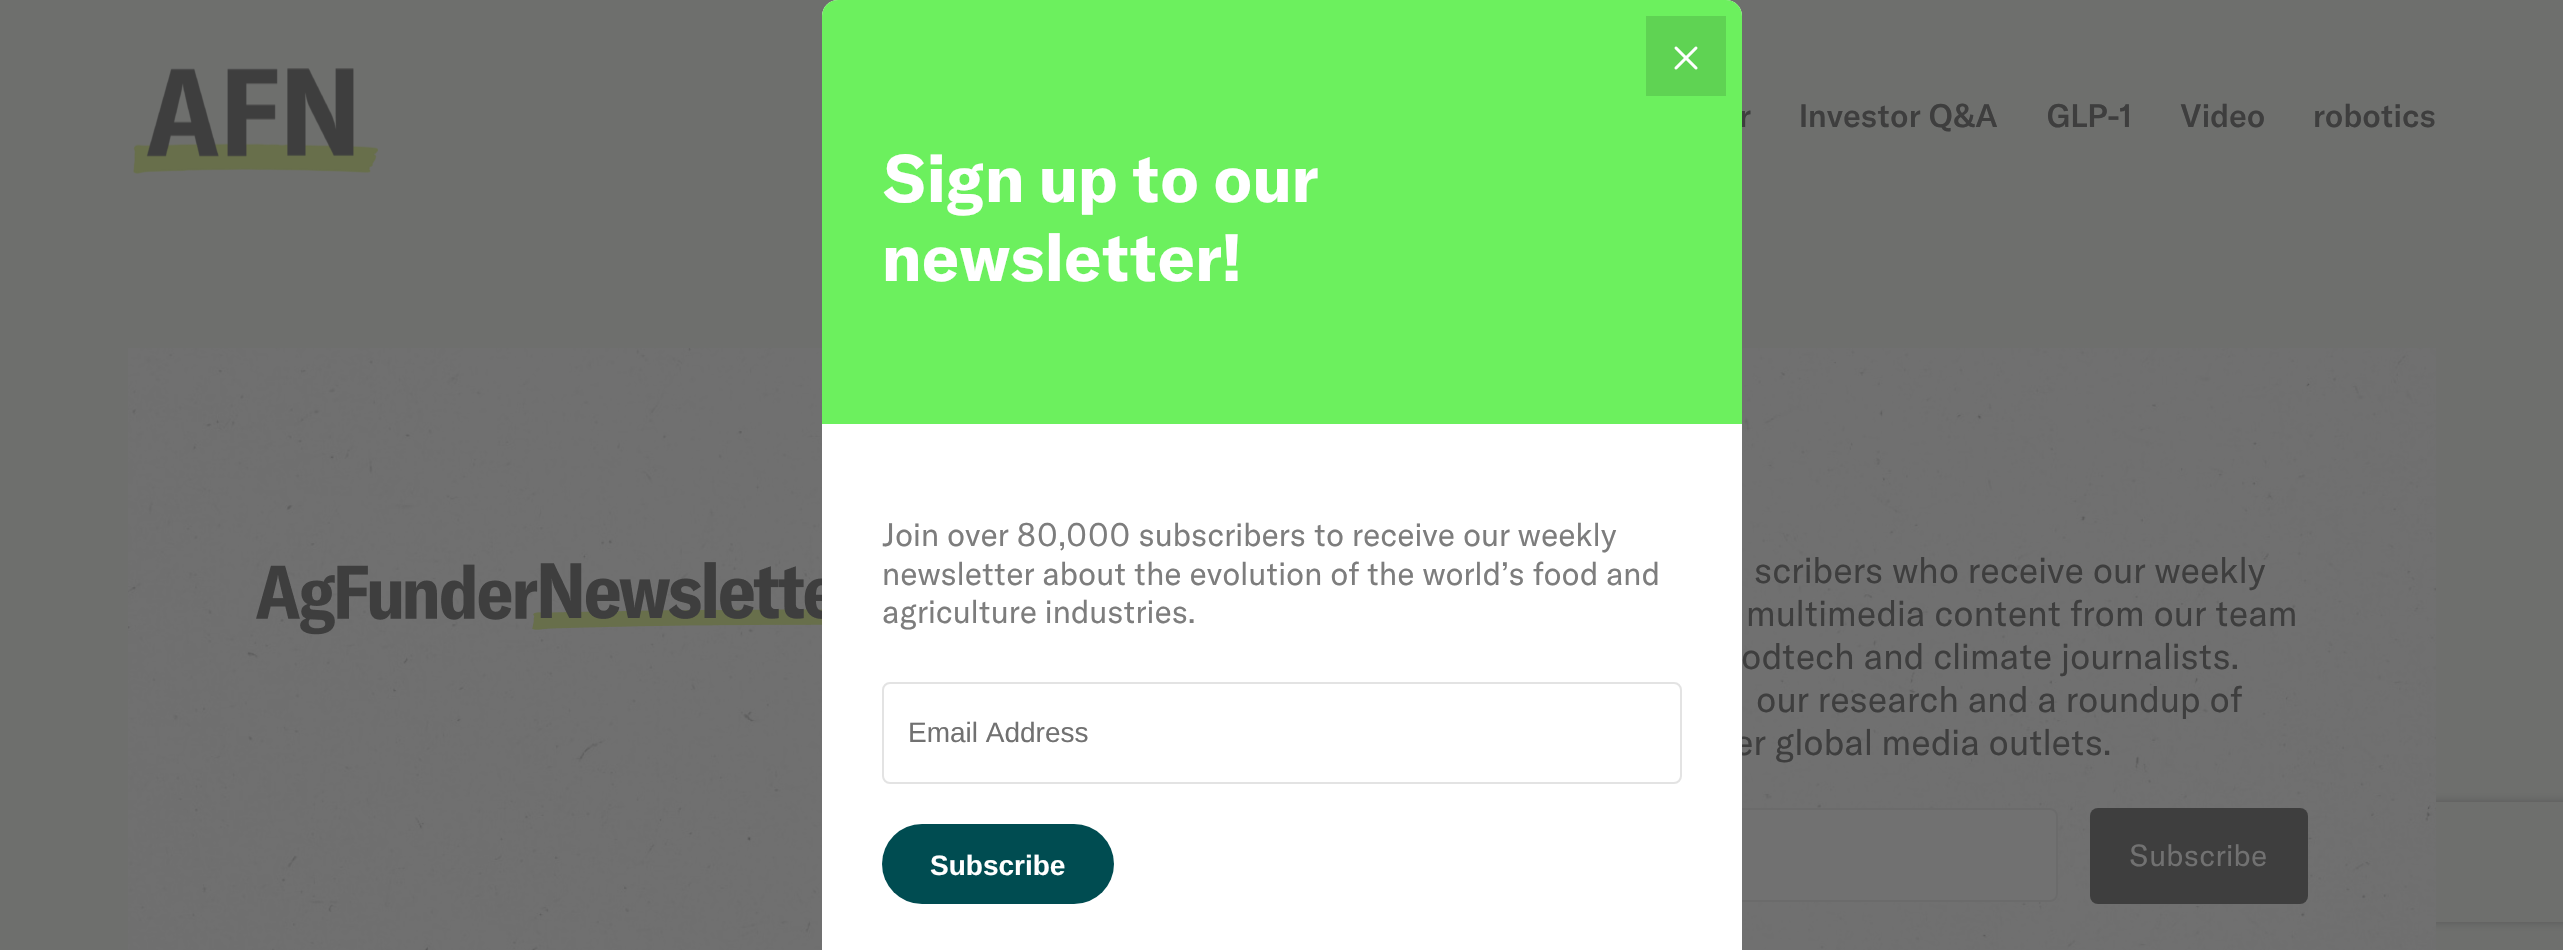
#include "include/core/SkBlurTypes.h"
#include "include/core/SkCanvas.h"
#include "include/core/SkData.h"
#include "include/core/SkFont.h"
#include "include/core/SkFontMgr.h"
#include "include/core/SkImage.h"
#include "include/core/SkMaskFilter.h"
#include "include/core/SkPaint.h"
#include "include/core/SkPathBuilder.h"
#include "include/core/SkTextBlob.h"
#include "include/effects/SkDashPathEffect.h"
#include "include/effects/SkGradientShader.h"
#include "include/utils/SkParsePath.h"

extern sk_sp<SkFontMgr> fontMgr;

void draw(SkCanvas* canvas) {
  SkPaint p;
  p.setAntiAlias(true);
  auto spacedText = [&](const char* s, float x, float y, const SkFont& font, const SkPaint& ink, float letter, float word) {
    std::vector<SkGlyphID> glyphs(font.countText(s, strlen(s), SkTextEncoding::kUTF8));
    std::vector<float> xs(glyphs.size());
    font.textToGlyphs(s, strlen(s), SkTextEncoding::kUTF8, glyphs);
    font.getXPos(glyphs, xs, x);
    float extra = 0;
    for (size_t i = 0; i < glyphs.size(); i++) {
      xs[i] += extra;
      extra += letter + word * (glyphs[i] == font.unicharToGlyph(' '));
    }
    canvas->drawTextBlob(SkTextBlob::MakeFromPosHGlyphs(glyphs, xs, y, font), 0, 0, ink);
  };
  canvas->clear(SkColorSetRGB(110, 111, 109));
  canvas->drawImageRect(SkImages::DeferredFromEncodedData(SkData::MakeFromFileName("images/2.png")), SkRect::MakeLTRB(133, 68, 378, 174), SkSamplingOptions());
  canvas->save();
  canvas->clipPath(SkPathBuilder(SkPathFillType::kEvenOdd).moveTo(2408, 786).lineTo(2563, 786).lineTo(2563, 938).lineTo(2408, 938).close().moveTo(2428, 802).lineTo(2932, 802).cubicTo(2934, 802, 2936, 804, 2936, 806).lineTo(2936, 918).cubicTo(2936, 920, 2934, 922, 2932, 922).lineTo(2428, 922).cubicTo(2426, 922, 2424, 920, 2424, 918).lineTo(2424, 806).cubicTo(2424, 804, 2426, 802, 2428, 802).close().detach(), true);
  p.setColor(SkColorSetRGB(87, 87, 87));
  p.setMaskFilter(SkMaskFilter::MakeBlur(kNormal_SkBlurStyle, 5));
  canvas->drawRoundRect(SkRect::MakeLTRB(2424, 802, 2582, 922), 4, 4, p);
  p.setMaskFilter(nullptr);
  canvas->restore();
  canvas->drawImageRect(SkImages::DeferredFromEncodedData(SkData::MakeFromFileName("images/3.png")), SkRect::MakeLTRB(128, 348, 2436, 950), SkSamplingOptions());
  canvas->drawImageRect(SkImages::DeferredFromEncodedData(SkData::MakeFromFileName("images/4.png")), SkRect::MakeLTRB(256, 562, 822, 635), SkSamplingOptions());
  p.setColor(SkColorSetRGB(113, 113, 113));
  canvas->drawRoundRect(SkRect::MakeLTRB(1363, 809, 2057, 901), 7, 7, p);
  p.setStyle(SkPaint::kStroke_Style);
  p.setStrokeWidth(2);
  p.setColor(SkColorSetRGB(107, 107, 107));
  canvas->drawRoundRect(SkRect::MakeLTRB(1363, 809, 2057, 901), 7, 7, p);
  p.setStyle(SkPaint::kFill_Style);
  p.setColor(SkColorSetRGB(62, 62, 62));
  canvas->drawRoundRect(SkRect::MakeLTRB(2090, 808, 2308, 904), 8, 8, p);
  SkFont font1(fontMgr->matchFamilyStyle("GT America", SkFontStyle(500, SkFontStyle::kNormal_Width, SkFontStyle::kUpright_Slant)), 32);
  font1.setSubpixel(true);
  canvas->drawString("r", 1739, 127, font1, p);
  canvas->drawString("Investor Q&A", 1799, 127, font1, p);
  canvas->drawString("GLP-1", 2046, 127, font1, p);
  canvas->drawString("Video", 2180, 127, font1, p);
  canvas->drawString("robotics", 2313, 127, font1, p);
  SkFont font2(fontMgr->matchFamilyStyle("GT America", SkFontStyle::Normal()), 36);
  font2.setSubpixel(true);
  canvas->drawString("scribers who receive our weekly", 1754, 583, font2, p);
  canvas->drawString("multimedia content from our team", 1746, 626, font2, p);
  canvas->drawString("odtech and climate journalists.", 1741, 669, font2, p);
  canvas->drawString("our research and a roundup of", 1756, 712, font2, p);
  canvas->drawString("er global media outlets.", 1734, 755, font2, p);
  p.setColor(SK_ColorWHITE);
  canvas->drawPath(SkPathBuilder().moveTo(838, 0).lineTo(1726, 0).cubicTo(1735, 0, 1742, 7, 1742, 16).lineTo(1742, 950).lineTo(822, 950).lineTo(822, 16).cubicTo(822, 7, 829, 0, 838, 0).close().detach(), p);
  p.setColor(SkColorSetRGB(108, 240, 94));
  canvas->drawPath(SkPathBuilder().moveTo(838, 0).lineTo(1726, 0).cubicTo(1735, 0, 1742, 7, 1742, 16).lineTo(1742, 424).lineTo(822, 424).lineTo(822, 16).cubicTo(822, 7, 829, 0, 838, 0).close().detach(), p);
  p.setColor(SkColorSetRGB(95, 211, 83));
  canvas->drawRect(SkRect::MakeLTRB(1646, 16, 1726, 96), p);
  canvas->drawImageRect(SkImages::DeferredFromEncodedData(SkData::MakeFromFileName("images/1.png")), SkRect::MakeLTRB(1674, 46, 1698, 70), SkSamplingOptions());
  SkFont font3(fontMgr->matchFamilyStyle("GT America", SkFontStyle::Bold()), 66);
  font3.setSubpixel(true);
  p.setColor(SK_ColorWHITE);
  canvas->drawString("newsletter!", 882, 281, font3, p);
  canvas->drawString("Sign up to our", 882, 202, font3, p);
  p.setColor(SkColorSetRGB(0, 76, 81));
  canvas->drawRoundRect(SkRect::MakeLTRB(882, 824, 1114, 904), 40, 40, p);
  SkFont font4(fontMgr->matchFamilyStyle("Liberation Sans", SkFontStyle::Bold()), 28);
  font4.setSubpixel(true);
  p.setColor(SK_ColorWHITE);
  canvas->drawString("Subscribe", 930, 875, font4, p);
  p.setStyle(SkPaint::kStroke_Style);
  p.setColor(SkColorSetRGB(227, 227, 227));
  canvas->drawRoundRect(SkRect::MakeLTRB(883, 683, 1681, 783), 7, 7, p);
  SkFont font5(fontMgr->matchFamilyStyle("Liberation Sans", SkFontStyle::Normal()), 28);
  font5.setSubpixel(true);
  p.setStyle(SkPaint::kFill_Style);
  p.setColor(SkColorSetRGB(113, 113, 113));
  canvas->drawString("Email Address", 908, 742, font5, p);
  SkFont font6(fontMgr->matchFamilyStyle("GT America", SkFontStyle::Normal()), 32);
  font6.setSubpixel(true);
  p.setColor(SkColorSetRGB(125, 125, 125));
  canvas->drawString("agriculture industries.", 882, 623, font6, p);
  canvas->drawString("newsletter about the evolution of the world’s food and", 882, 585, font6, p);
  canvas->drawString("Join over 80,000 subscribers to receive our weekly", 882, 546, font6, p);
  SkFont font7(fontMgr->matchFamilyStyle("GT America", SkFontStyle::Normal()), 30);
  font7.setSubpixel(true);
  p.setColor(SkColorSetRGB(113, 113, 113));
  spacedText("Subscribe", 2129, 866, font7, p, 0.25f, 0);
}
